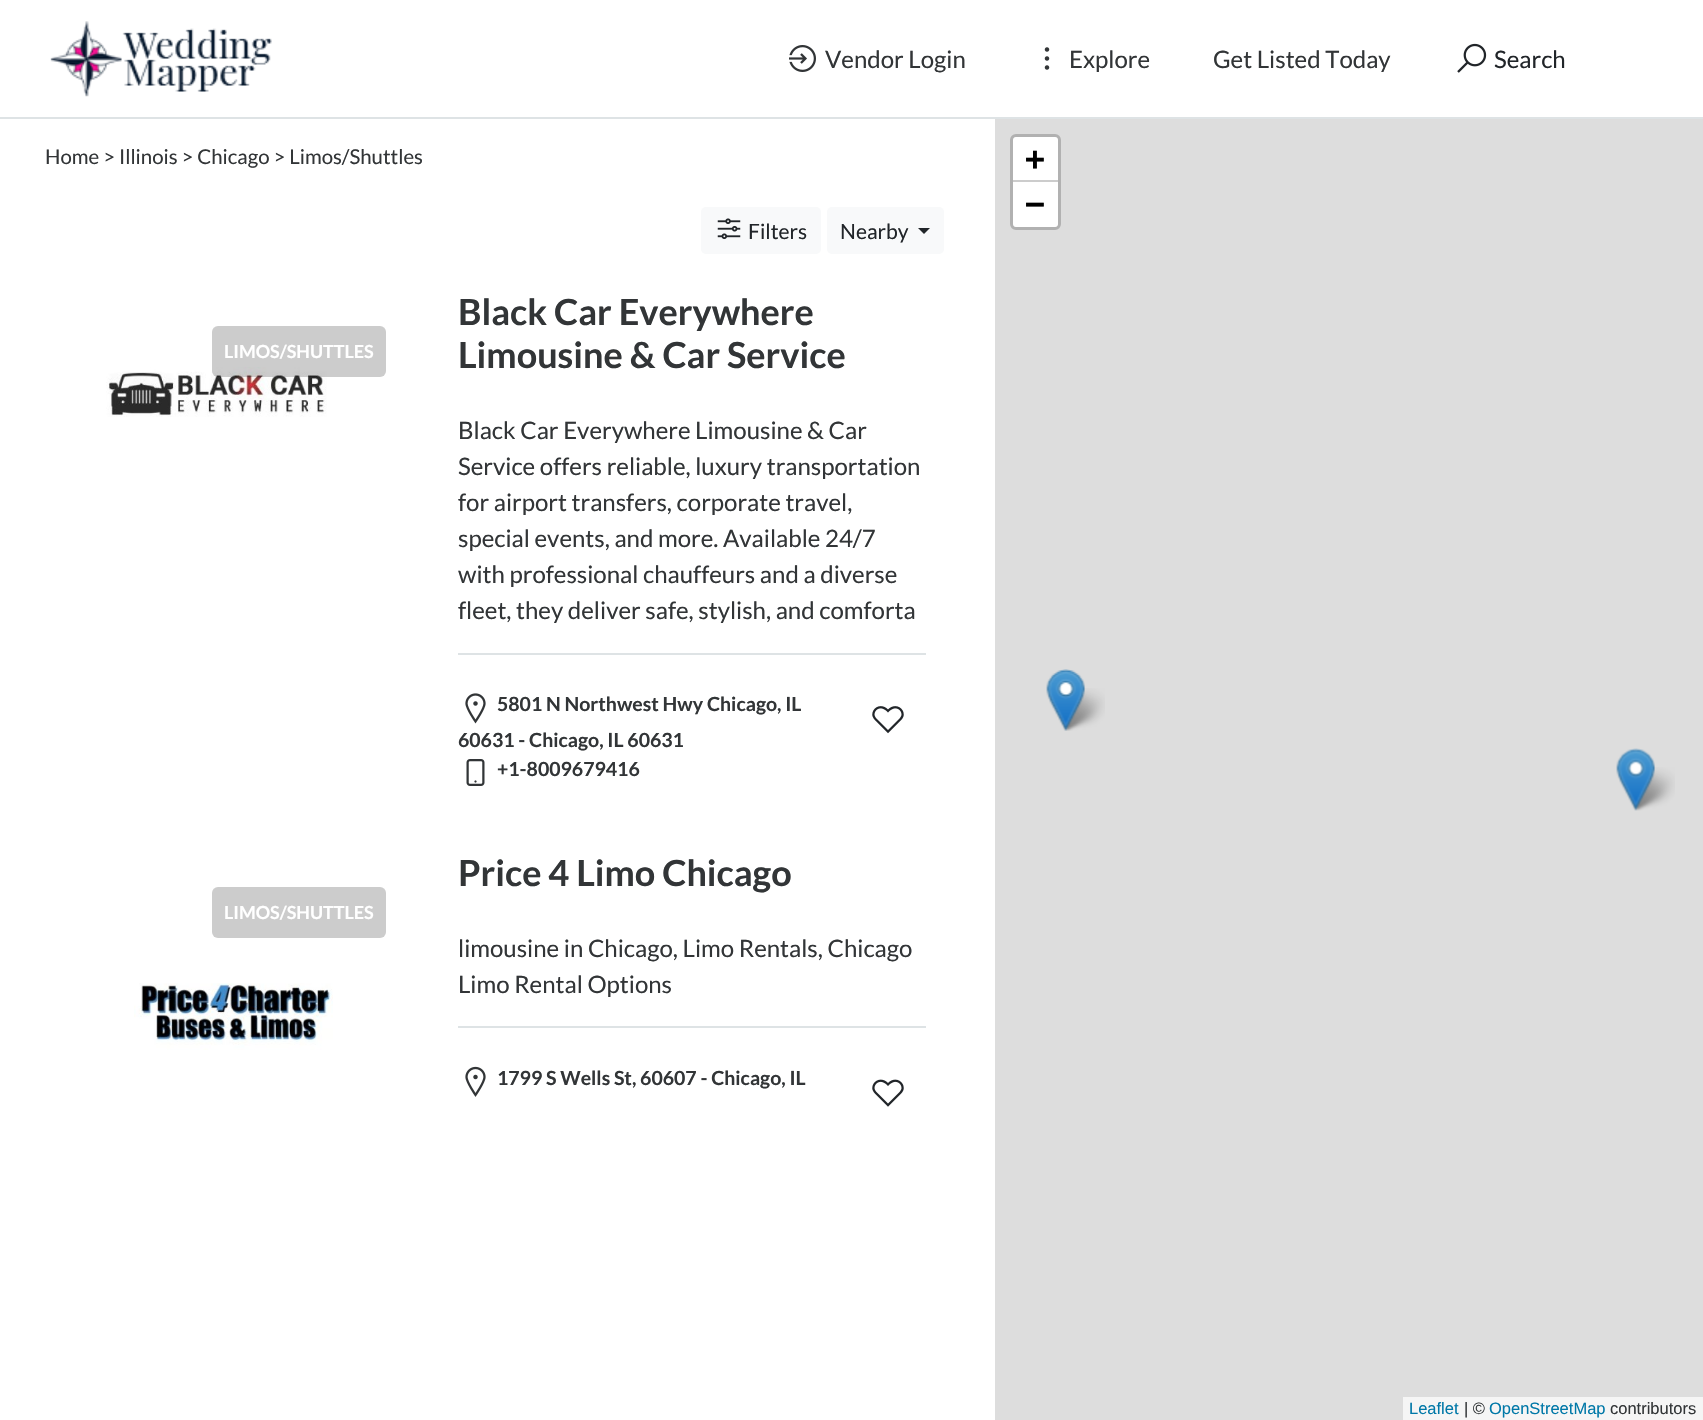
#include "include/core/SkBlurTypes.h"
#include "include/core/SkCanvas.h"
#include "include/core/SkData.h"
#include "include/core/SkFont.h"
#include "include/core/SkFontMgr.h"
#include "include/core/SkImage.h"
#include "include/core/SkMaskFilter.h"
#include "include/core/SkPaint.h"
#include "include/core/SkPathBuilder.h"
#include "include/core/SkTextBlob.h"
#include "include/effects/SkDashPathEffect.h"
#include "include/effects/SkGradientShader.h"
#include "include/utils/SkParsePath.h"

extern sk_sp<SkFontMgr> fontMgr;

void draw(SkCanvas* canvas) {
  SkPaint p;
  p.setAntiAlias(true);
  canvas->clear(SK_ColorWHITE);
  p.setColor(SkColorSetRGB(222, 227, 229));
  canvas->drawRect(SkRect::MakeLTRB(0, 117, 1703, 119), p);
  canvas->drawImageRect(SkImages::DeferredFromEncodedData(SkData::MakeFromFileName("images/1.png")), SkRect::MakeLTRB(50, 21, 272, 97), SkSamplingOptions());
  canvas->drawImageRect(SkImages::DeferredFromEncodedData(SkData::MakeFromFileName("images/2.png")), SkRect::MakeLTRB(789, 45, 816, 72), SkSamplingOptions());
  canvas->drawImageRect(SkImages::DeferredFromEncodedData(SkData::MakeFromFileName("images/3.png")), SkRect::MakeLTRB(1044, 47, 1050, 70), SkSamplingOptions());
  canvas->drawImageRect(SkImages::DeferredFromEncodedData(SkData::MakeFromFileName("images/4.png")), SkRect::MakeLTRB(1457, 43, 1487, 73), SkSamplingOptions());
  p.setColor(SkColorSetRGB(248, 249, 250));
  canvas->drawRoundRect(SkRect::MakeLTRB(701, 207, 821, 254), 5, 5, p);
  canvas->drawImageRect(SkImages::DeferredFromEncodedData(SkData::MakeFromFileName("images/5.png")), SkRect::MakeLTRB(717, 218, 741, 240), SkSamplingOptions());
  canvas->drawRoundRect(SkRect::MakeLTRB(827, 207, 944, 254), 5, 5, p);
  p.setColor(SkColorSetRGB(33, 37, 41));
  canvas->drawPath(SkPathBuilder().moveTo(918, 228).lineTo(930, 228).lineTo(924, 234).close().detach(), p);
  canvas->drawImageRect(SkImages::DeferredFromEncodedData(SkData::MakeFromFileName("images/6.png")), SkRect::MakeLTRB(106, 367, 327, 417), SkSamplingOptions());
  p.setColor(SkColorSetARGB(51, 0, 0, 0));
  canvas->drawRoundRect(SkRect::MakeLTRB(212, 326, 386, 377), 6, 6, p);
  p.setColor(SkColorSetRGB(222, 227, 229));
  canvas->drawRect(SkRect::MakeLTRB(458, 653, 926, 655), p);
  canvas->drawImageRect(SkImages::DeferredFromEncodedData(SkData::MakeFromFileName("images/7.png")), SkRect::MakeLTRB(465, 693, 486, 724), SkSamplingOptions());
  canvas->drawImageRect(SkImages::DeferredFromEncodedData(SkData::MakeFromFileName("images/8.png")), SkRect::MakeLTRB(466, 759, 485, 786), SkSamplingOptions());
  canvas->drawImageRect(SkImages::DeferredFromEncodedData(SkData::MakeFromFileName("images/9.png")), SkRect::MakeLTRB(872, 706, 904, 734), SkSamplingOptions());
  p.setColor(SkColorSetRGB(204, 204, 204));
  canvas->drawRoundRect(SkRect::MakeLTRB(212, 887, 386, 938), 6, 6, p);
  canvas->drawImageRect(SkImages::DeferredFromEncodedData(SkData::MakeFromFileName("images/10.png")), SkRect::MakeLTRB(134, 983, 333, 1050), SkSamplingOptions());
  p.setColor(SkColorSetRGB(222, 227, 229));
  canvas->drawRect(SkRect::MakeLTRB(458, 1026, 926, 1028), p);
  canvas->drawImageRect(SkImages::DeferredFromEncodedData(SkData::MakeFromFileName("images/11.png")), SkRect::MakeLTRB(465, 1066, 486, 1097), SkSamplingOptions());
  canvas->drawImageRect(SkImages::DeferredFromEncodedData(SkData::MakeFromFileName("images/12.png")), SkRect::MakeLTRB(872, 1079, 904, 1107), SkSamplingOptions());
  p.setColor(SkColorSetRGB(221, 221, 221));
  canvas->drawRect(SkRect::MakeLTRB(995, 119, 1703, 1420), p);
  p.setStyle(SkPaint::kStroke_Style);
  p.setStrokeWidth(3);
  p.setColor(SkColorSetRGB(177, 177, 177));
  canvas->drawRoundRect(SkRect::MakeLTRB(1011.5f, 135.5f, 1059.5f, 228.5f), 4.5f, 4.5f, p);
  p.setStyle(SkPaint::kFill_Style);
  p.setColor(SK_ColorWHITE);
  canvas->drawPath(SkPathBuilder().moveTo(1016, 137).lineTo(1055, 137).cubicTo(1056.5f, 137, 1058, 138.5f, 1058, 140).lineTo(1058, 182).lineTo(1013, 182).lineTo(1013, 140).cubicTo(1013, 138.5f, 1014.5f, 137, 1016, 137).close().detach(), p);
  p.setColor(SkColorSetRGB(204, 204, 204));
  canvas->drawRect(SkRect::MakeLTRB(1013, 180, 1058, 182), p);
  p.setColor(SK_ColorWHITE);
  canvas->drawPath(SkPathBuilder().moveTo(1013, 182).lineTo(1058, 182).lineTo(1058, 224).cubicTo(1058, 225.5f, 1056.5f, 227, 1055, 227).lineTo(1016, 227).cubicTo(1014.5f, 227, 1013, 225.5f, 1013, 224).close().detach(), p);
  p.setColor(SkColorSetRGB(245, 245, 245));
  canvas->drawRect(SkRect::MakeLTRB(1403, 1397, 1703, 1420), p);
  canvas->drawImageRect(SkImages::DeferredFromEncodedData(SkData::MakeFromFileName("images/15.png")), SkRect::MakeLTRB(1060, 688, 1105, 731), SkSamplingOptions());
  canvas->drawImageRect(SkImages::DeferredFromEncodedData(SkData::MakeFromFileName("images/13.png")), SkRect::MakeLTRB(1046, 669, 1085, 731), SkSamplingOptions());
  canvas->drawImageRect(SkImages::DeferredFromEncodedData(SkData::MakeFromFileName("images/16.png")), SkRect::MakeLTRB(1630, 767, 1675, 811), SkSamplingOptions());
  canvas->drawImageRect(SkImages::DeferredFromEncodedData(SkData::MakeFromFileName("images/14.png")), SkRect::MakeLTRB(1616, 748, 1655, 811), SkSamplingOptions());
  SkFont font1(fontMgr->matchFamilyStyle("Lato", SkFontStyle::Normal()), 24);
  font1.setSubpixel(true);
  p.setColor(SkColorSetRGB(50, 53, 55));
  canvas->drawString("Vendor Login", 825, 68, font1, p);
  canvas->drawString("Explore", 1069, 68, font1, p);
  canvas->drawString("Get Listed Today", 1213, 68, font1, p);
  p.setColor(SkColorSetRGB(33, 37, 41));
  canvas->drawString("Search", 1494, 68, font1, p);
  SkFont font2(fontMgr->matchFamilyStyle("Lato", SkFontStyle::Normal()), 20.4f);
  font2.setSubpixel(true);
  p.setColor(SkColorSetRGB(50, 53, 55));
  canvas->drawString("Home > Illinois > Chicago > Limos/Shuttles", 45, 164, font2, p);
  SkFont font3(fontMgr->matchFamilyStyle("Lato", SkFontStyle::Normal()), 21);
  font3.setSubpixel(true);
  p.setColor(SkColorSetRGB(33, 37, 41));
  canvas->drawString("Filters", 748, 239, font3, p);
  canvas->drawString("Nearby", 840, 239, font3, p);
  SkFont font4(fontMgr->matchFamilyStyle("Lato", SkFontStyle::Bold()), 18);
  font4.setSubpixel(true);
  p.setColor(SK_ColorWHITE);
  canvas->drawString("LIMOS/SHUTTLES", 224, 358, font4, p);
  SkFont font5(fontMgr->matchFamilyStyle("Lato", SkFontStyle::Bold()), 36);
  font5.setSubpixel(true);
  p.setColor(SkColorSetRGB(50, 53, 55));
  canvas->drawString("Black Car Everywhere", 458, 325, font5, p);
  canvas->drawString("Limousine & Car Service", 458, 368, font5, p);
  canvas->drawString("Black Car Everywhere Limousine & Car", 458, 439, font1, p);
  canvas->drawString("Service offers reliable, luxury transportation", 458, 475, font1, p);
  canvas->drawString("for airport transfers, corporate travel,", 458, 511, font1, p);
  canvas->drawString("special events, and more. Available 24/7", 458, 547, font1, p);
  canvas->drawString("with professional chauffeurs and a diverse", 458, 583, font1, p);
  canvas->drawString("fleet, they deliver safe, stylish, and comforta", 458, 619, font1, p);
  SkFont font6(fontMgr->matchFamilyStyle("Lato", SkFontStyle::Bold()), 19.5f);
  font6.setSubpixel(true);
  canvas->drawString("5801 N Northwest Hwy Chicago, IL", 497, 711, font6, p);
  canvas->drawString("60631 - Chicago, IL 60631", 458, 747, font6, p);
  canvas->drawString("+1-8009679416", 497, 776, font6, p);
  p.setColor(SK_ColorWHITE);
  canvas->drawString("LIMOS/SHUTTLES", 224, 919, font4, p);
  p.setColor(SkColorSetRGB(50, 53, 55));
  canvas->drawString("Price 4 Limo Chicago", 458, 886, font5, p);
  canvas->drawString("limousine in Chicago, Limo Rentals, Chicago", 458, 957, font1, p);
  canvas->drawString("Limo Rental Options", 458, 993, font1, p);
  canvas->drawString("1799 S Wells St, 60607 - Chicago, IL", 497, 1085, font6, p);
  SkFont font7(fontMgr->matchFamilyStyle("DejaVu Sans Mono", SkFontStyle::Bold()), 33);
  font7.setSubpixel(true);
  p.setColor(SK_ColorBLACK);
  canvas->drawString("+", 1025, 170, font7, p);
  canvas->drawString("−", 1025, 215, font7, p);
  SkFont font8(fontMgr->matchFamilyStyle("Liberation Sans", SkFontStyle::Normal()), 16.5f);
  font8.setSubpixel(true);
  p.setColor(SkColorSetRGB(0, 120, 168));
  canvas->drawString("Leaflet", 1409, 1414, font8, p);
  p.setColor(SkColorSetRGB(50, 53, 55));
  canvas->drawString("| ©", 1464, 1414, font8, p);
  p.setColor(SkColorSetRGB(0, 120, 168));
  canvas->drawString("OpenStreetMap", 1489, 1414, font8, p);
  p.setColor(SkColorSetRGB(50, 53, 55));
  canvas->drawString("contributors", 1610, 1414, font8, p);
}
